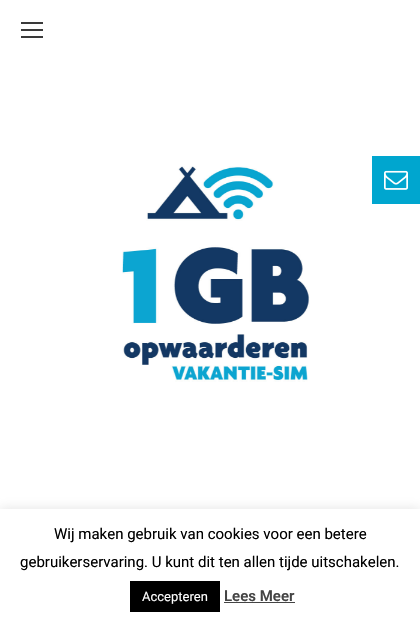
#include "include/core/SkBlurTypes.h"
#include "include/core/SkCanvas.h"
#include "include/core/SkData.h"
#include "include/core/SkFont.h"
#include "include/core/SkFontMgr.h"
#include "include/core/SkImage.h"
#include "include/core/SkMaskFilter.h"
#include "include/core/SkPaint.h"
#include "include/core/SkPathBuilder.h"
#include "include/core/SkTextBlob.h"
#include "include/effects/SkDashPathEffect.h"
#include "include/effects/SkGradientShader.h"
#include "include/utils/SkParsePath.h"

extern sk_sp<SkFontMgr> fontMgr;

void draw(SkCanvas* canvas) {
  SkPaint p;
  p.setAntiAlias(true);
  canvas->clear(SK_ColorWHITE);
  p.setColor(SkColorSetRGB(58, 58, 58));
  canvas->drawRect(SkRect::MakeLTRB(21, 22, 43, 24), p);
  canvas->drawRect(SkRect::MakeLTRB(21, 29, 43, 31), p);
  canvas->drawRect(SkRect::MakeLTRB(21, 36, 43, 38), p);
  canvas->drawImageRect(SkImages::DeferredFromEncodedData(SkData::MakeFromFileName("images/1.png")), SkRect::MakeLTRB(122, 166, 310, 382), SkSamplingOptions());
  p.setColor(SkColorSetRGB(0, 166, 207));
  canvas->drawRect(SkRect::MakeLTRB(372, 156, 420, 204), p);
  canvas->drawImageRect(SkImages::DeferredFromEncodedData(SkData::MakeFromFileName("images/2.png")), SkRect::MakeLTRB(384, 170, 408, 190), SkSamplingOptions());
  p.setColor(SkColorSetARGB(77, 172, 171, 171));
  p.setMaskFilter(SkMaskFilter::MakeBlur(kNormal_SkBlurStyle, 5));
  canvas->drawRect(SkRect::MakeLTRB(0, 508, 420, 623), p);
  p.setMaskFilter(nullptr);
  p.setColor(SK_ColorWHITE);
  canvas->drawRect(SkRect::MakeLTRB(0, 509, 420, 624), p);
  p.setColor(SK_ColorBLACK);
  canvas->drawRect(SkRect::MakeLTRB(130, 581, 220, 612), p);
  p.setColor(SkColorSetRGB(68, 68, 68));
  canvas->drawRect(SkRect::MakeLTRB(224, 602, 295, 603), p);
  SkFont font1(fontMgr->matchFamilyStyle("Roboto", SkFontStyle::Normal()), 15);
  font1.setSubpixel(true);
  p.setColor(SK_ColorBLACK);
  canvas->drawString("Wij maken gebruik van cookies voor een betere", 54, 539, font1, p);
  canvas->drawString("gebruikerservaring. U kunt dit ten allen tijde uitschakelen.", 20, 567, font1, p);
  SkFont font2(fontMgr->matchFamilyStyle("Roboto", SkFontStyle::Normal()), 13);
  font2.setSubpixel(true);
  p.setColor(SK_ColorWHITE);
  canvas->drawString("Accepteren", 142, 601, font2, p);
  SkFont font3(fontMgr->matchFamilyStyle("Roboto", SkFontStyle(600, SkFontStyle::kNormal_Width, SkFontStyle::kUpright_Slant)), 15);
  font3.setSubpixel(true);
  p.setColor(SkColorSetRGB(68, 68, 68));
  canvas->drawString("Lees Meer", 224, 601, font3, p);
}
